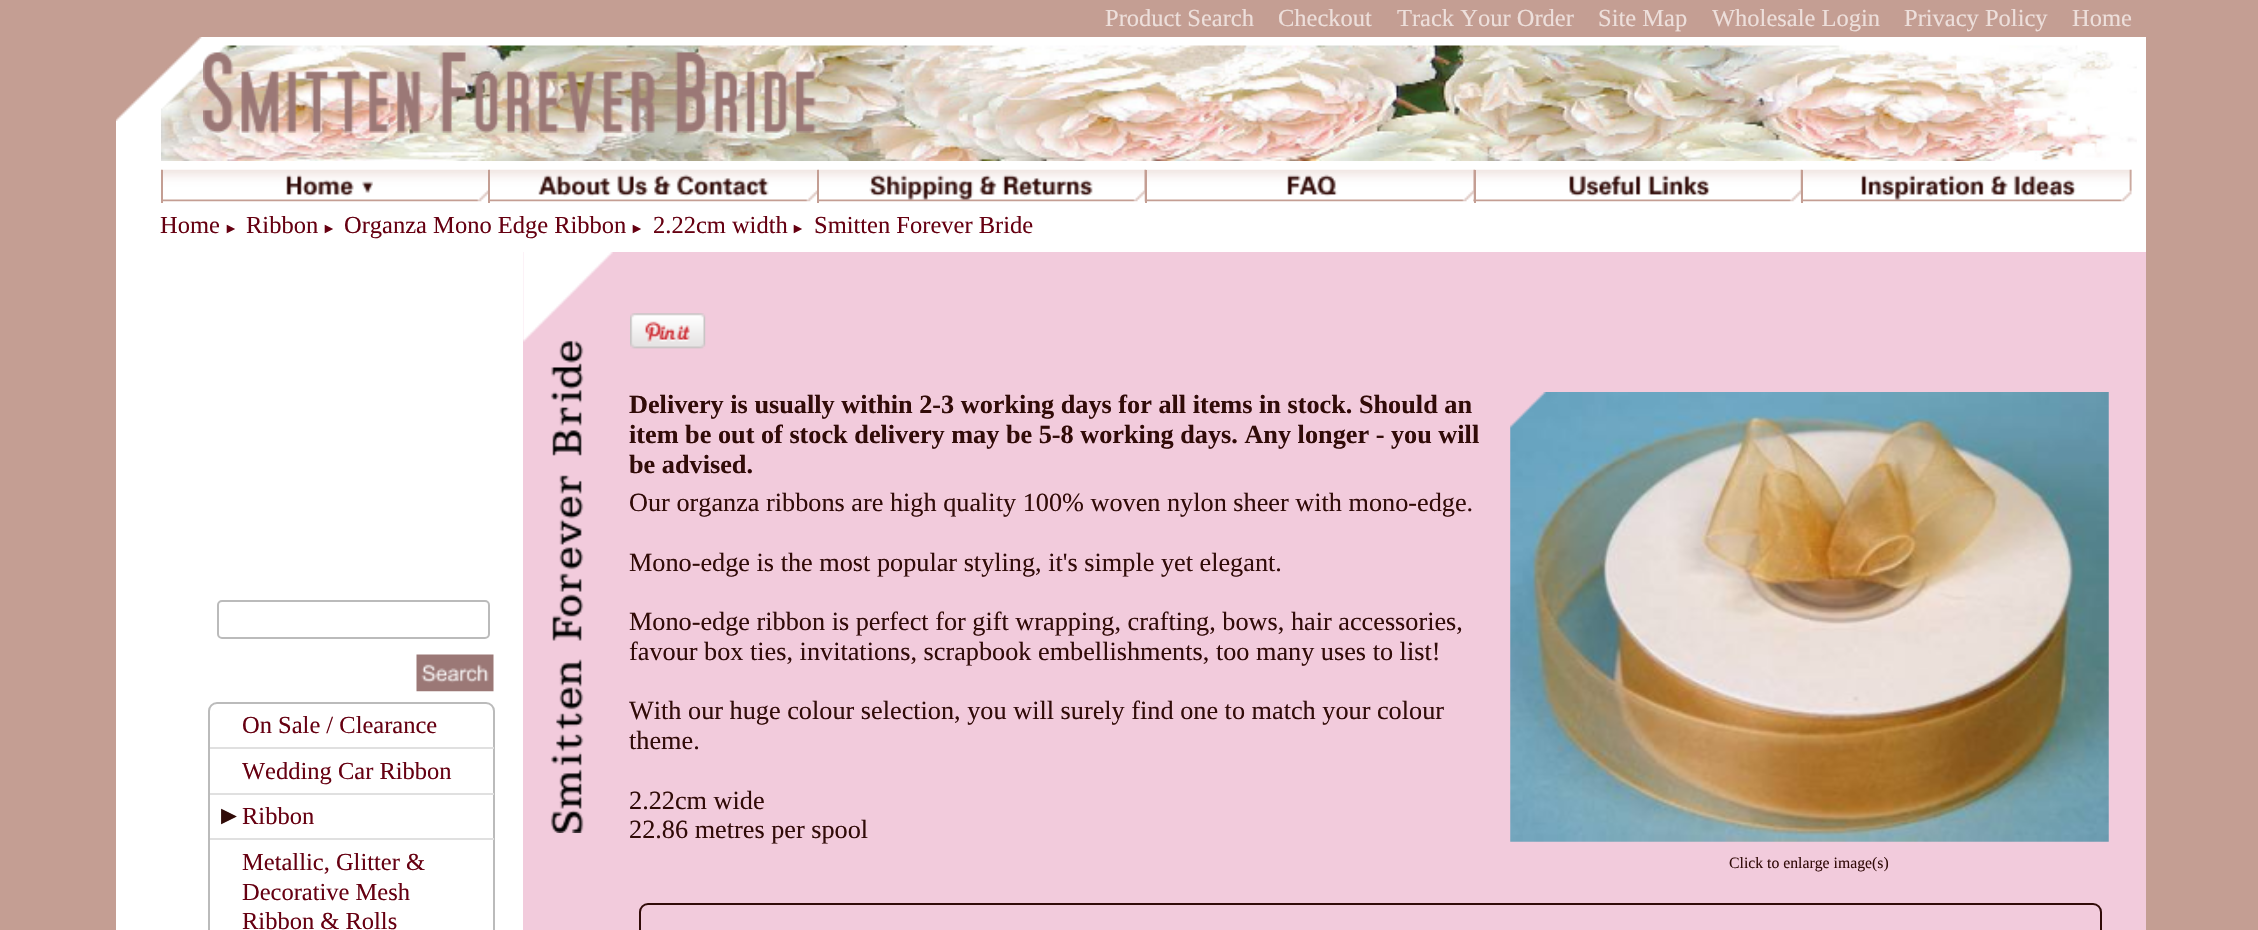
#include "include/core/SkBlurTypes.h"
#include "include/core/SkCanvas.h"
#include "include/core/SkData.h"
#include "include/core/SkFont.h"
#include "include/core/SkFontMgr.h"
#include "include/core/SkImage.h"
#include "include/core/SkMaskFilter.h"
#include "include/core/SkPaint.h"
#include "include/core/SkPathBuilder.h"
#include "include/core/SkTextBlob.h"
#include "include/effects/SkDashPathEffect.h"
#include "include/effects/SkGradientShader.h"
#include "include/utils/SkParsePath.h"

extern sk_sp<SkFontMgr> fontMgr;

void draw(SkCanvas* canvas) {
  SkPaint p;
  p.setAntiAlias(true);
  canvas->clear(SkColorSetRGB(196, 158, 147));
  p.setColor(SK_ColorWHITE);
  canvas->drawRect(SkRect::MakeLTRB(116, 37, 2146, 252), p);
  canvas->drawImageRect(SkImages::DeferredFromEncodedData(SkData::MakeFromFileName("images/1.png")), SkRect::MakeLTRB(116, 37, 202, 121), SkSamplingOptions());
  canvas->drawImageRect(SkImages::DeferredFromEncodedData(SkData::MakeFromFileName("images/2.png")), SkRect::MakeLTRB(161, 45, 2137, 161), SkSamplingOptions());
  canvas->drawImageRect(SkImages::DeferredFromEncodedData(SkData::MakeFromFileName("images/3.png")), SkRect::MakeLTRB(203, 52, 816, 133), SkSamplingOptions());
  canvas->drawImageRect(SkImages::DeferredFromEncodedData(SkData::MakeFromFileName("images/4.png")), SkRect::MakeLTRB(161, 169, 2132, 202), SkSamplingOptions());
  canvas->drawImageRect(SkImages::DeferredFromEncodedData(SkData::MakeFromFileName("images/5.png")), SkRect::MakeLTRB(163, 190, 488, 202), SkSamplingOptions());
  p.setColor(SkColorSetRGB(196, 158, 147));
  canvas->drawRect(SkRect::MakeLTRB(161, 170, 163, 203), p);
  canvas->drawImageRect(SkImages::DeferredFromEncodedData(SkData::MakeFromFileName("images/6.png")), SkRect::MakeLTRB(286, 174, 373, 197), SkSamplingOptions());
  canvas->drawImageRect(SkImages::DeferredFromEncodedData(SkData::MakeFromFileName("images/7.png")), SkRect::MakeLTRB(490, 190, 817, 202), SkSamplingOptions());
  canvas->drawRect(SkRect::MakeLTRB(488, 170, 490, 203), p);
  canvas->drawImageRect(SkImages::DeferredFromEncodedData(SkData::MakeFromFileName("images/8.png")), SkRect::MakeLTRB(538, 174, 769, 197), SkSamplingOptions());
  canvas->drawImageRect(SkImages::DeferredFromEncodedData(SkData::MakeFromFileName("images/9.png")), SkRect::MakeLTRB(819, 190, 1145, 202), SkSamplingOptions());
  canvas->drawRect(SkRect::MakeLTRB(817, 170, 819, 203), p);
  canvas->drawImageRect(SkImages::DeferredFromEncodedData(SkData::MakeFromFileName("images/10.png")), SkRect::MakeLTRB(869, 174, 1093, 200), SkSamplingOptions());
  canvas->drawImageRect(SkImages::DeferredFromEncodedData(SkData::MakeFromFileName("images/11.png")), SkRect::MakeLTRB(1147, 190, 1474, 202), SkSamplingOptions());
  canvas->drawRect(SkRect::MakeLTRB(1145, 170, 1147, 203), p);
  canvas->drawImageRect(SkImages::DeferredFromEncodedData(SkData::MakeFromFileName("images/12.png")), SkRect::MakeLTRB(1287, 174, 1338, 197), SkSamplingOptions());
  canvas->drawImageRect(SkImages::DeferredFromEncodedData(SkData::MakeFromFileName("images/13.png")), SkRect::MakeLTRB(1473, 190, 1801, 202), SkSamplingOptions());
  canvas->drawRect(SkRect::MakeLTRB(1474, 170, 1476, 203), p);
  canvas->drawImageRect(SkImages::DeferredFromEncodedData(SkData::MakeFromFileName("images/14.png")), SkRect::MakeLTRB(1569, 174, 1710, 197), SkSamplingOptions());
  canvas->drawImageRect(SkImages::DeferredFromEncodedData(SkData::MakeFromFileName("images/15.png")), SkRect::MakeLTRB(1803, 169, 2132, 202), SkSamplingOptions());
  canvas->drawRect(SkRect::MakeLTRB(1801, 170, 1803, 203), p);
  canvas->drawImageRect(SkImages::DeferredFromEncodedData(SkData::MakeFromFileName("images/16.png")), SkRect::MakeLTRB(1861, 174, 2076, 200), SkSamplingOptions());
  p.setColor(SK_ColorWHITE);
  canvas->drawRect(SkRect::MakeLTRB(116, 252, 523, 930), p);
  p.setColor(SkColorSetRGB(242, 203, 220));
  canvas->drawRect(SkRect::MakeLTRB(523, 252, 2146, 930), p);
  canvas->drawImageRect(SkImages::DeferredFromEncodedData(SkData::MakeFromFileName("images/17.png")), SkRect::MakeLTRB(523, 252, 613, 833), SkSamplingOptions());
  p.setStyle(SkPaint::kStroke_Style);
  p.setStrokeWidth(2);
  p.setColor(SkColorSetRGB(187, 187, 187));
  canvas->drawRoundRect(SkRect::MakeLTRB(218, 601, 489, 638), 4, 4, p);
  canvas->drawImageRect(SkImages::DeferredFromEncodedData(SkData::MakeFromFileName("images/18.png")), SkRect::MakeLTRB(416, 654, 494, 692), SkSamplingOptions());
  canvas->drawRoundRect(SkRect::MakeLTRB(209, 703, 494, 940), 8, 8, p);
  p.setStyle(SkPaint::kFill_Style);
  p.setColor(SkColorSetRGB(224, 224, 224));
  canvas->drawRect(SkRect::MakeLTRB(210, 747, 494, 749), p);
  canvas->drawRect(SkRect::MakeLTRB(210, 793, 494, 795), p);
  canvas->drawRect(SkRect::MakeLTRB(210, 838, 494, 840), p);
  canvas->drawImageRect(SkImages::DeferredFromEncodedData(SkData::MakeFromFileName("images/19.png")), SkRect::MakeLTRB(630, 313, 706, 349), SkSamplingOptions());
  canvas->drawImageRect(SkImages::DeferredFromEncodedData(SkData::MakeFromFileName("images/20.png")), SkRect::MakeLTRB(1510, 392, 2109, 842), SkSamplingOptions());
  p.setStyle(SkPaint::kStroke_Style);
  p.setColor(SkColorSetRGB(49, 11, 8));
  canvas->drawRoundRect(SkRect::MakeLTRB(640, 904, 2101, 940), 8, 8, p);
  SkFont font1(fontMgr->matchFamilyStyle("Liberation Serif", SkFontStyle::Normal()), 24.5f);
  font1.setSubpixel(true);
  p.setStyle(SkPaint::kFill_Style);
  p.setColor(SkColorSetRGB(237, 223, 219));
  canvas->drawString("Product Search", 1105, 26, font1, p);
  canvas->drawString("Checkout", 1278, 26, font1, p);
  canvas->drawString("Track Your Order", 1397, 26, font1, p);
  canvas->drawString("Site Map", 1598, 26, font1, p);
  canvas->drawString("Wholesale Login", 1712, 26, font1, p);
  canvas->drawString("Privacy Policy", 1904, 26, font1, p);
  canvas->drawString("Home", 2072, 26, font1, p);
  p.setColor(SkColorSetRGB(102, 0, 17));
  canvas->drawString("Home", 160, 233, font1, p);
  SkFont font2(fontMgr->matchFamilyStyle("Liberation Sans", SkFontStyle::Normal()), 14);
  font2.setSubpixel(true);
  canvas->drawString("►", 224, 233, font2, p);
  canvas->drawString("Ribbon", 246, 233, font1, p);
  canvas->drawString("►", 322, 233, font2, p);
  canvas->drawString("Organza Mono Edge Ribbon", 344, 233, font1, p);
  canvas->drawString("►", 630, 233, font2, p);
  canvas->drawString("2.22cm width", 653, 233, font1, p);
  canvas->drawString("►", 791, 233, font2, p);
  canvas->drawString("Smitten Forever Bride", 814, 233, font1, p);
  canvas->drawString("On Sale / Clearance", 242, 733, font1, p);
  canvas->drawString("Wedding Car Ribbon", 242, 779, font1, p);
  SkFont font3(fontMgr->matchFamilyStyle("Liberation Sans", SkFontStyle::Normal()), 26.25f);
  font3.setSubpixel(true);
  p.setColor(SkColorSetRGB(49, 11, 8));
  canvas->drawString("►", 216, 824, font3, p);
  p.setColor(SkColorSetRGB(102, 0, 17));
  canvas->drawString("Ribbon", 242, 824, font1, p);
  canvas->drawString("Metallic, Glitter &", 242, 870, font1, p);
  canvas->drawString("Decorative Mesh", 242, 900, font1, p);
  canvas->drawString("Ribbon & Rolls", 242, 929, font1, p);
  SkFont font4(fontMgr->matchFamilyStyle("Liberation Serif", SkFontStyle::Bold()), 26.25f);
  font4.setSubpixel(true);
  p.setColor(SkColorSetRGB(49, 11, 8));
  canvas->drawString("Delivery is usually within 2-3 working days for all items in stock. Should an", 629, 413, font4, p);
  canvas->drawString("item be out of stock delivery may be 5-8 working days. Any longer - you will", 629, 443, font4, p);
  canvas->drawString("be advised.", 629, 473, font4, p);
  SkFont font5(fontMgr->matchFamilyStyle("Liberation Serif", SkFontStyle::Normal()), 26.25f);
  font5.setSubpixel(true);
  canvas->drawString("Our organza ribbons are high quality 100% woven nylon sheer with mono-edge.", 629, 511, font5, p);
  canvas->drawString("Mono-edge is the most popular styling, it's simple yet elegant.", 629, 571, font5, p);
  canvas->drawString("Mono-edge ribbon is perfect for gift wrapping, crafting, bows, hair accessories,", 629, 630, font5, p);
  canvas->drawString("favour box ties, invitations, scrapbook embellishments, too many uses to list!", 629, 660, font5, p);
  canvas->drawString("With our huge colour selection, you will surely find one to match your colour", 629, 719, font5, p);
  canvas->drawString("theme.", 629, 749, font5, p);
  canvas->drawString("2.22cm wide", 629, 809, font5, p);
  canvas->drawString("22.86 metres per spool", 629, 838, font5, p);
  SkFont font6(fontMgr->matchFamilyStyle("Liberation Serif", SkFontStyle::Normal()), 15.75f);
  font6.setSubpixel(true);
  canvas->drawString("Click to enlarge image(s)", 1729, 868, font6, p);
}
